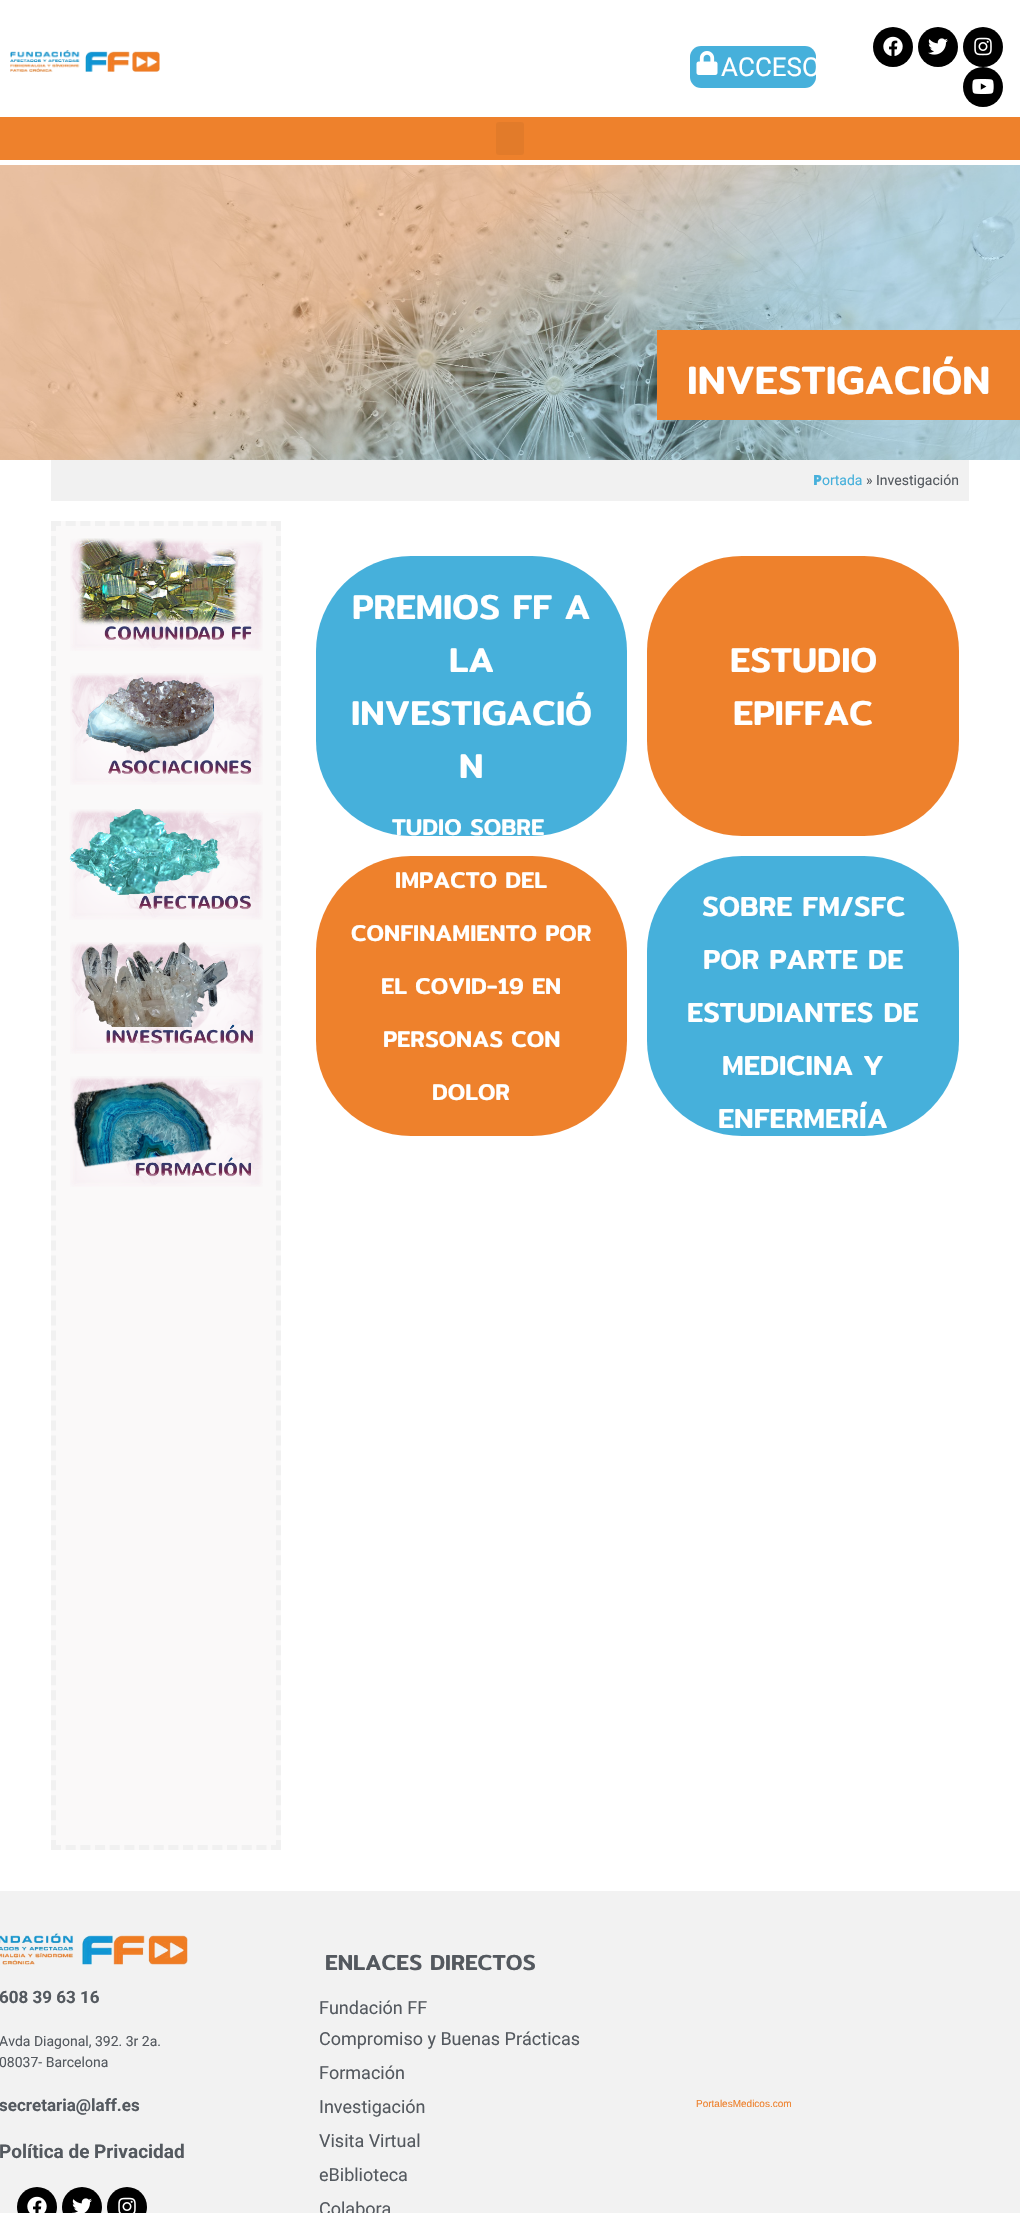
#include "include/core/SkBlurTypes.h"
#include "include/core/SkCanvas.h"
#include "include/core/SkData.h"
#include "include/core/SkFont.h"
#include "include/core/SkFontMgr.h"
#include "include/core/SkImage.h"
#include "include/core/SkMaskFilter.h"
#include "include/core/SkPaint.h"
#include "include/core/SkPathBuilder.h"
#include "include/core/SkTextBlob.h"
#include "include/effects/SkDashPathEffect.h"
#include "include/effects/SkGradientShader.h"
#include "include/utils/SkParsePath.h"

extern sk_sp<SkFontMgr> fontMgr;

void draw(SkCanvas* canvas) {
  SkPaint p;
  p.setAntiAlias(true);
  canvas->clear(SK_ColorWHITE);
  canvas->drawImageRect(SkImages::DeferredFromEncodedData(SkData::MakeFromFileName("images/1.png")), SkRect::MakeLTRB(10, 50, 160, 72), SkSamplingOptions());
  p.setColor(SkColorSetRGB(70, 176, 219));
  canvas->drawRoundRect(SkRect::MakeLTRB(690, 46, 816, 88), 11, 11, p);
  canvas->drawImageRect(SkImages::DeferredFromEncodedData(SkData::MakeFromFileName("images/2.png")), SkRect::MakeLTRB(696, 51, 718, 75), SkSamplingOptions());
  p.setColor(SK_ColorBLACK);
  canvas->drawCircle(893, 47, 20, p);
  canvas->drawImageRect(SkImages::DeferredFromEncodedData(SkData::MakeFromFileName("images/3.png")), SkRect::MakeLTRB(883, 36, 903, 56), SkSamplingOptions());
  canvas->drawCircle(938, 47, 20, p);
  canvas->drawImageRect(SkImages::DeferredFromEncodedData(SkData::MakeFromFileName("images/4.png")), SkRect::MakeLTRB(928, 38, 948, 55), SkSamplingOptions());
  canvas->drawCircle(983, 47, 20, p);
  canvas->drawImageRect(SkImages::DeferredFromEncodedData(SkData::MakeFromFileName("images/5.png")), SkRect::MakeLTRB(974, 37, 992, 56), SkSamplingOptions());
  canvas->drawCircle(983, 87, 20, p);
  canvas->drawImageRect(SkImages::DeferredFromEncodedData(SkData::MakeFromFileName("images/6.png")), SkRect::MakeLTRB(972, 79, 994, 94), SkSamplingOptions());
  p.setColor(SkColorSetRGB(238, 129, 44));
  canvas->drawRect(SkRect::MakeLTRB(0, 117, 1020, 160), p);
  p.setColor(SkColorSetRGB(226, 123, 42));
  canvas->drawRoundRect(SkRect::MakeLTRB(496, 122, 524, 155), 3, 3, p);
  canvas->drawImageRect(SkImages::DeferredFromEncodedData(SkData::MakeFromFileName("images/7.png")), SkRect::MakeLTRB(0, 165, 1020, 460), SkSamplingOptions());
  p.setColor(SkColorSetRGB(238, 129, 44));
  canvas->drawRect(SkRect::MakeLTRB(657, 330, 1020, 420), p);
  p.setColor(SkColorSetRGB(241, 241, 241));
  canvas->drawRect(SkRect::MakeLTRB(51, 460, 969, 501), p);
  p.setColor(SkColorSetRGB(250, 249, 249));
  canvas->drawRect(SkRect::MakeLTRB(51, 521, 281, 1850), p);
  p.setStyle(SkPaint::kStroke_Style);
  p.setStrokeWidth(5);
  p.setColor(SkColorSetRGB(241, 241, 241));
  p.setPathEffect(SkDashPathEffect::Make({{10, 4.67f}}, 0));
  canvas->drawPath(SkPathBuilder().moveTo(51, 523.5f).lineTo(281, 523.5f).detach(), p);
  p.setPathEffect(nullptr);
  p.setPathEffect(SkDashPathEffect::Make({{10, 4.99f}}, 0));
  canvas->drawPath(SkPathBuilder().moveTo(278.5f, 521).lineTo(278.5f, 1850).detach(), p);
  p.setPathEffect(nullptr);
  p.setPathEffect(SkDashPathEffect::Make({{10, 4.67f}}, 0));
  canvas->drawPath(SkPathBuilder().moveTo(51, 1847.5f).lineTo(281, 1847.5f).detach(), p);
  p.setPathEffect(nullptr);
  p.setPathEffect(SkDashPathEffect::Make({{10, 4.99f}}, 0));
  canvas->drawPath(SkPathBuilder().moveTo(53.5f, 521).lineTo(53.5f, 1850).detach(), p);
  p.setPathEffect(nullptr);
  canvas->drawImageRect(SkImages::DeferredFromEncodedData(SkData::MakeFromFileName("images/8.png")), SkRect::MakeLTRB(70, 538, 263, 651), SkSamplingOptions());
  canvas->drawImageRect(SkImages::DeferredFromEncodedData(SkData::MakeFromFileName("images/9.png")), SkRect::MakeLTRB(70, 673, 263, 785), SkSamplingOptions());
  canvas->drawImageRect(SkImages::DeferredFromEncodedData(SkData::MakeFromFileName("images/10.png")), SkRect::MakeLTRB(69, 809, 263, 920), SkSamplingOptions());
  canvas->drawImageRect(SkImages::DeferredFromEncodedData(SkData::MakeFromFileName("images/11.png")), SkRect::MakeLTRB(70, 942, 263, 1054), SkSamplingOptions());
  canvas->drawImageRect(SkImages::DeferredFromEncodedData(SkData::MakeFromFileName("images/12.png")), SkRect::MakeLTRB(70, 1076, 263, 1187), SkSamplingOptions());
  p.setStyle(SkPaint::kFill_Style);
  p.setColor(SkColorSetRGB(70, 176, 219));
  canvas->drawRoundRect(SkRect::MakeLTRB(316, 556, 627, 836), 95, 95, p);
  p.setColor(SkColorSetRGB(238, 129, 44));
  canvas->drawRoundRect(SkRect::MakeLTRB(647, 556, 959, 836), 95, 95, p);
  canvas->drawRoundRect(SkRect::MakeLTRB(316, 856, 627, 1136), 95, 95, p);
  p.setColor(SkColorSetRGB(70, 176, 219));
  canvas->drawRoundRect(SkRect::MakeLTRB(647, 856, 959, 1136), 95, 95, p);
  p.setColor(SkColorSetRGB(242, 242, 242));
  canvas->drawRect(SkRect::MakeLTRB(0, 1891, 1020, 2213), p);
  canvas->drawImageRect(SkImages::DeferredFromEncodedData(SkData::MakeFromFileName("images/13.png")), SkRect::MakeLTRB(0, 1933, 188, 1965), SkSamplingOptions());
  p.setColor(SK_ColorBLACK);
  canvas->drawCircle(37, 2207, 20, p);
  canvas->drawImageRect(SkImages::DeferredFromEncodedData(SkData::MakeFromFileName("images/14.png")), SkRect::MakeLTRB(27, 2196, 47, 2213), SkSamplingOptions());
  canvas->drawCircle(82, 2207, 20, p);
  canvas->drawImageRect(SkImages::DeferredFromEncodedData(SkData::MakeFromFileName("images/15.png")), SkRect::MakeLTRB(72, 2198, 92, 2213), SkSamplingOptions());
  canvas->drawCircle(127, 2207, 20, p);
  canvas->drawImageRect(SkImages::DeferredFromEncodedData(SkData::MakeFromFileName("images/16.png")), SkRect::MakeLTRB(118, 2197, 136, 2213), SkSamplingOptions());
  SkFont font1(fontMgr->matchFamilyStyle("Roboto", SkFontStyle::Normal()), 26);
  font1.setSubpixel(true);
  p.setColor(SK_ColorWHITE);
  canvas->drawString("ACCESO", 721, 76, font1, p);
  SkFont font2(fontMgr->matchFamilyStyle("Mitr", SkFontStyle(500, SkFontStyle::kNormal_Width, SkFontStyle::kUpright_Slant)), 40);
  font2.setSubpixel(true);
  canvas->drawString("INVESTIGACIÓN", 687, 394, font2, p);
  SkFont font3(fontMgr->matchFamilyStyle("Noto Sans", SkFontStyle(900, SkFontStyle::kNormal_Width, SkFontStyle::kUpright_Slant)), 14);
  font3.setSubpixel(true);
  p.setColor(SkColorSetRGB(70, 176, 219));
  canvas->drawString("P", 813, 485, font3, p);
  SkFont font4(fontMgr->matchFamilyStyle("Roboto", SkFontStyle::Normal()), 14);
  font4.setSubpixel(true);
  canvas->drawString("ortada", 822, 485, font4, p);
  p.setColor(SkColorSetRGB(84, 89, 95));
  canvas->drawString("» Investigación", 866, 485, font4, p);
  SkFont font5(fontMgr->matchFamilyStyle("Mitr", SkFontStyle(500, SkFontStyle::kNormal_Width, SkFontStyle::kUpright_Slant)), 35);
  font5.setSubpixel(true);
  p.setColor(SK_ColorWHITE);
  canvas->drawString("PREMIOS FF A", 352, 619, font5, p);
  canvas->drawString("LA", 449, 672, font5, p);
  canvas->drawString("INVESTIGACIÓ", 351, 725, font5, p);
  canvas->drawString("N", 459, 778, font5, p);
  canvas->drawString("ESTUDIO", 730, 672, font5, p);
  canvas->drawString("EPIFFAC", 733, 725, font5, p);
  SkFont font6(fontMgr->matchFamilyStyle("Mitr", SkFontStyle(500, SkFontStyle::kNormal_Width, SkFontStyle::kUpright_Slant)), 23);
  font6.setSubpixel(true);
  canvas->drawString("TUDIO SOBRE", 392, 835, font6, p);
  canvas->drawString("IMPACTO DEL", 395, 888, font6, p);
  canvas->drawString("CONFINAMIENTO POR", 351, 941, font6, p);
  canvas->drawString("EL COVID-19 EN", 381, 994, font6, p);
  canvas->drawString("PERSONAS CON", 383, 1047, font6, p);
  canvas->drawString("DOLOR", 432, 1100, font6, p);
  SkFont font7(fontMgr->matchFamilyStyle("Mitr", SkFontStyle(500, SkFontStyle::kNormal_Width, SkFontStyle::kUpright_Slant)), 28);
  font7.setSubpixel(true);
  canvas->drawString("SOBRE FM/SFC", 702, 916, font7, p);
  canvas->drawString("POR PARTE DE", 703, 969, font7, p);
  canvas->drawString("ESTUDIANTES DE", 687, 1022, font7, p);
  canvas->drawString("MEDICINA Y", 722, 1075, font7, p);
  canvas->drawString("ENFERMERÍA", 718, 1128, font7, p);
  SkFont font8(fontMgr->matchFamilyStyle("Roboto", SkFontStyle::Bold()), 17);
  font8.setSubpixel(true);
  p.setColor(SkColorSetRGB(84, 89, 95));
  canvas->drawString("608 39 63 16", -1, 2003, font8, p);
  canvas->drawString("Avda Diagonal, 392. 3r 2a.", -1, 2046, font4, p);
  canvas->drawString("08037- Barcelona", -1, 2067, font4, p);
  canvas->drawString("secretaria@laff.es", -1, 2111, font8, p);
  SkFont font9(fontMgr->matchFamilyStyle("Roboto", SkFontStyle::Bold()), 19);
  font9.setSubpixel(true);
  canvas->drawString("Política de Privacidad", -1, 2158, font9, p);
  SkFont font10(fontMgr->matchFamilyStyle("Mitr", SkFontStyle(500, SkFontStyle::kNormal_Width, SkFontStyle::kUpright_Slant)), 22);
  font10.setSubpixel(true);
  canvas->drawString("ENLACES DIRECTOS", 325, 1970, font10, p);
  SkFont font11(fontMgr->matchFamilyStyle("Roboto", SkFontStyle::Normal()), 18);
  font11.setSubpixel(true);
  canvas->drawString("Fundación FF", 319, 2014, font11, p);
  canvas->drawString("Compromiso y Buenas Prácticas", 319, 2045, font11, p);
  canvas->drawString("Formación", 319, 2079, font11, p);
  canvas->drawString("Investigación", 319, 2113, font11, p);
  canvas->drawString("Visita Virtual", 319, 2147, font11, p);
  canvas->drawString("eBiblioteca", 319, 2181, font11, p);
  canvas->drawString("Colabora", 319, 2215, font11, p);
  SkFont font12(fontMgr->matchFamilyStyle("Liberation Sans", SkFontStyle::Normal()), 10);
  font12.setSubpixel(true);
  p.setColor(SkColorSetRGB(238, 129, 44));
  canvas->drawString("PortalesMedicos.com", 696, 2107, font12, p);
}
